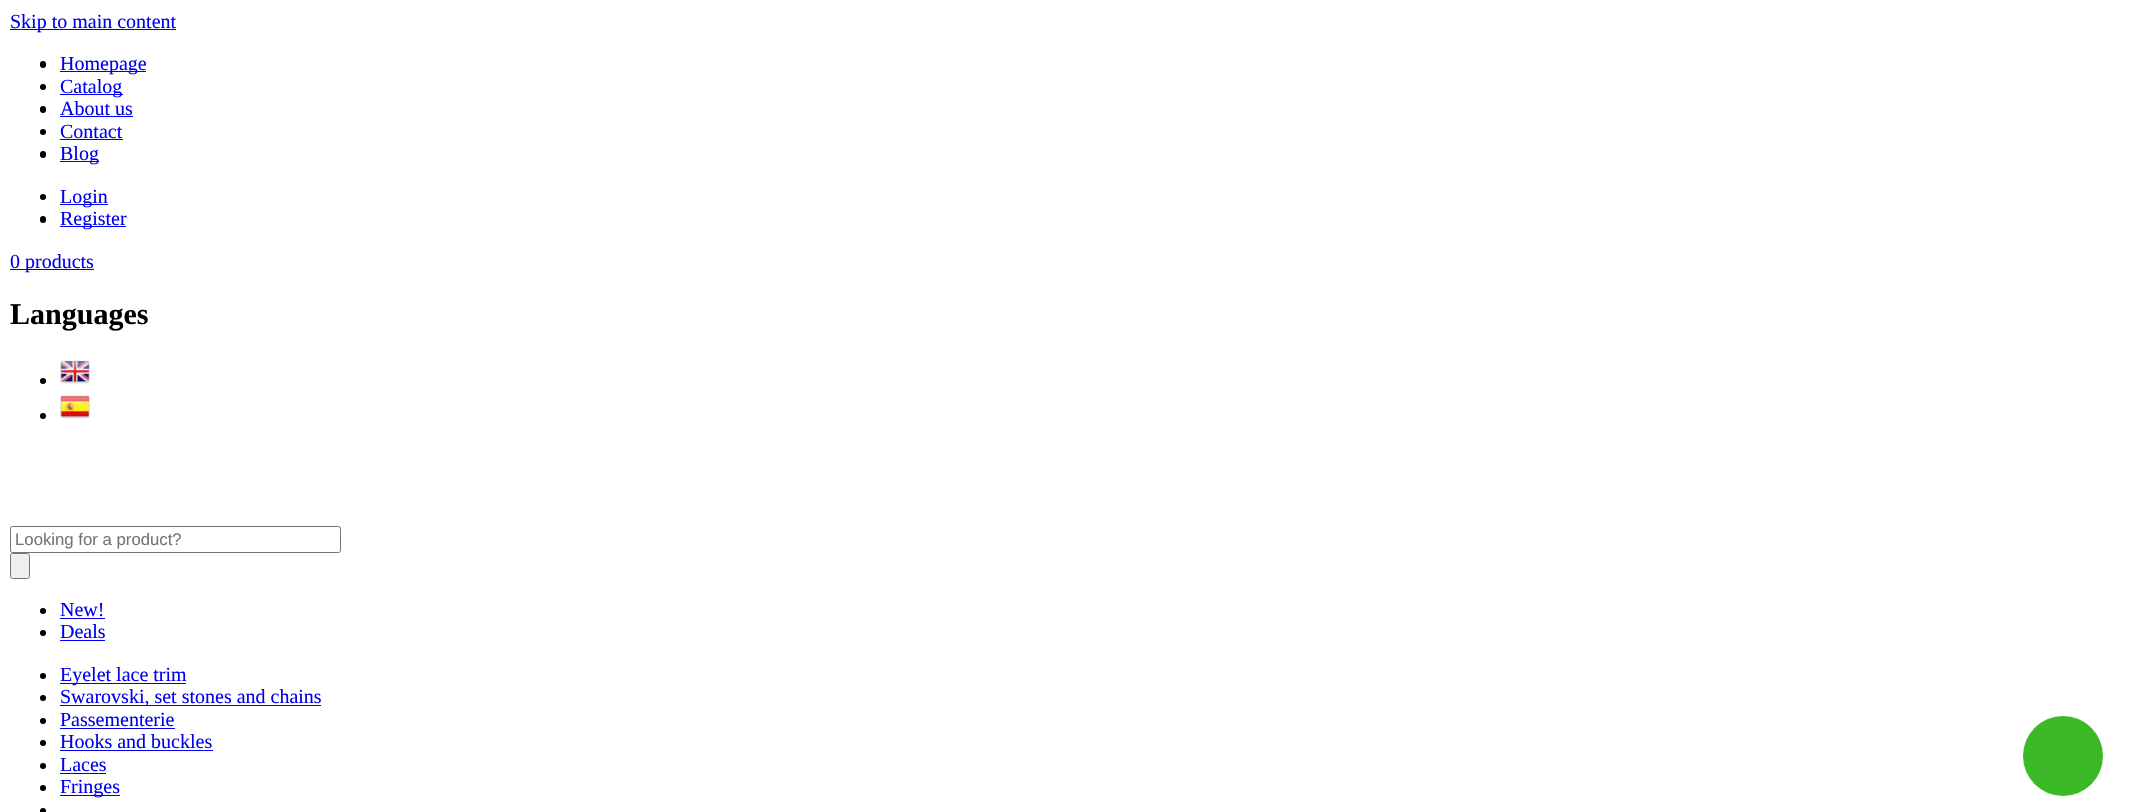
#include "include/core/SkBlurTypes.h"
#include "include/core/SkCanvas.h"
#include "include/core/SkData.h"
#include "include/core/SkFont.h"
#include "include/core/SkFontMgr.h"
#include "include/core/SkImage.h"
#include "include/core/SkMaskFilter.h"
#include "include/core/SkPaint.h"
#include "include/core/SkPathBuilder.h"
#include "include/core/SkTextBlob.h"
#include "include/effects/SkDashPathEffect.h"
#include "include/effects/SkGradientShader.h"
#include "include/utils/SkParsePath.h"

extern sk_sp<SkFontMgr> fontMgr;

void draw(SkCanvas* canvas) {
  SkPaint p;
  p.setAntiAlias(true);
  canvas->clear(SK_ColorWHITE);
  p.setColor(SkColorSetRGB(0, 0, 238));
  canvas->drawRect(SkRect::MakeLTRB(10, 29, 176, 30), p);
  p.setColor(SK_ColorBLACK);
  canvas->drawRoundRect(SkRect::MakeLTRB(40, 61, 46, 68), 3, 3, p);
  p.setColor(SkColorSetRGB(0, 0, 238));
  canvas->drawRect(SkRect::MakeLTRB(60, 71, 146, 72), p);
  p.setColor(SK_ColorBLACK);
  canvas->drawCircle(43, 87, 3, p);
  p.setColor(SkColorSetRGB(0, 0, 238));
  canvas->drawRect(SkRect::MakeLTRB(60, 94, 123, 95), p);
  p.setColor(SK_ColorBLACK);
  canvas->drawRoundRect(SkRect::MakeLTRB(40, 106, 46, 113), 3, 3, p);
  p.setColor(SkColorSetRGB(0, 0, 238));
  canvas->drawRect(SkRect::MakeLTRB(60, 116, 133, 117), p);
  p.setColor(SK_ColorBLACK);
  canvas->drawCircle(43, 132, 3, p);
  p.setColor(SkColorSetRGB(0, 0, 238));
  canvas->drawRect(SkRect::MakeLTRB(60, 139, 123, 140), p);
  p.setColor(SK_ColorBLACK);
  canvas->drawRoundRect(SkRect::MakeLTRB(40, 151, 46, 158), 3, 3, p);
  p.setColor(SkColorSetRGB(0, 0, 238));
  canvas->drawRect(SkRect::MakeLTRB(60, 161, 99, 162), p);
  p.setColor(SK_ColorBLACK);
  canvas->drawCircle(43, 197, 3, p);
  p.setColor(SkColorSetRGB(0, 0, 238));
  canvas->drawRect(SkRect::MakeLTRB(60, 204, 108, 205), p);
  p.setColor(SK_ColorBLACK);
  canvas->drawRoundRect(SkRect::MakeLTRB(40, 216, 46, 223), 3, 3, p);
  p.setColor(SkColorSetRGB(0, 0, 238));
  canvas->drawRect(SkRect::MakeLTRB(60, 226, 126, 227), p);
  canvas->drawRect(SkRect::MakeLTRB(10, 269, 94, 270), p);
  p.setColor(SK_ColorBLACK);
  canvas->drawCircle(43, 381, 3, p);
  canvas->drawImageRect(SkImages::DeferredFromEncodedData(SkData::MakeFromFileName("images/1.png")), SkRect::MakeLTRB(60, 360, 90, 384), SkSamplingOptions());
  canvas->drawCircle(43, 416, 3, p);
  canvas->drawImageRect(SkImages::DeferredFromEncodedData(SkData::MakeFromFileName("images/2.png")), SkRect::MakeLTRB(60, 395, 90, 419), SkSamplingOptions());
  p.setStyle(SkPaint::kStroke_Style);
  p.setStrokeWidth(1);
  p.setColor(SkColorSetRGB(118, 118, 118));
  canvas->drawRoundRect(SkRect::MakeLTRB(10.5f, 526.5f, 340.5f, 552.5f), 2, 2, p);
  p.setStyle(SkPaint::kFill_Style);
  p.setColor(SkColorSetRGB(239, 239, 239));
  canvas->drawRoundRect(SkRect::MakeLTRB(10.5f, 553.5f, 29.5f, 578.5f), 2, 2, p);
  p.setStyle(SkPaint::kStroke_Style);
  p.setColor(SkColorSetRGB(118, 118, 118));
  canvas->drawRoundRect(SkRect::MakeLTRB(10.5f, 553.5f, 29.5f, 578.5f), 2, 2, p);
  p.setStyle(SkPaint::kFill_Style);
  p.setColor(SkColorSetRGB(59, 185, 39));
  canvas->drawCircle(2063, 756, 40, p);
  p.setColor(SK_ColorBLACK);
  canvas->drawCircle(43, 611, 3, p);
  p.setColor(SkColorSetRGB(0, 0, 238));
  canvas->drawRect(SkRect::MakeLTRB(60, 618, 105, 619), p);
  p.setColor(SK_ColorBLACK);
  canvas->drawCircle(43, 633, 3, p);
  p.setColor(SkColorSetRGB(0, 0, 238));
  canvas->drawRect(SkRect::MakeLTRB(60, 640, 105, 641), p);
  p.setColor(SK_ColorBLACK);
  canvas->drawCircle(43, 676, 3, p);
  p.setColor(SkColorSetRGB(0, 0, 238));
  canvas->drawRect(SkRect::MakeLTRB(60, 683, 186, 684), p);
  p.setColor(SK_ColorBLACK);
  canvas->drawCircle(43, 698, 3, p);
  p.setColor(SkColorSetRGB(0, 0, 238));
  canvas->drawRect(SkRect::MakeLTRB(60, 705, 321, 706), p);
  p.setColor(SK_ColorBLACK);
  canvas->drawCircle(43, 721, 3, p);
  p.setColor(SkColorSetRGB(0, 0, 238));
  canvas->drawRect(SkRect::MakeLTRB(60, 728, 175, 729), p);
  p.setColor(SK_ColorBLACK);
  canvas->drawCircle(43, 743, 3, p);
  p.setColor(SkColorSetRGB(0, 0, 238));
  canvas->drawRect(SkRect::MakeLTRB(60, 750, 213, 751), p);
  p.setColor(SK_ColorBLACK);
  canvas->drawCircle(43, 766, 3, p);
  p.setColor(SkColorSetRGB(0, 0, 238));
  canvas->drawRect(SkRect::MakeLTRB(60, 773, 106, 774), p);
  p.setColor(SK_ColorBLACK);
  canvas->drawCircle(43, 788, 3, p);
  p.setColor(SkColorSetRGB(0, 0, 238));
  canvas->drawRect(SkRect::MakeLTRB(60, 795, 120, 796), p);
  p.setColor(SK_ColorBLACK);
  canvas->drawCircle(43, 811, 3, p);
  SkFont font1(fontMgr->matchFamilyStyle("Liberation Serif", SkFontStyle::Normal()), 20);
  font1.setSubpixel(true);
  p.setColor(SkColorSetRGB(0, 0, 238));
  canvas->drawString("Skip to main content", 10, 28, font1, p);
  canvas->drawString("Homepage", 60, 70, font1, p);
  canvas->drawString("Catalog", 60, 93, font1, p);
  canvas->drawString("About us", 60, 115, font1, p);
  canvas->drawString("Contact", 60, 138, font1, p);
  canvas->drawString("Blog", 60, 160, font1, p);
  canvas->drawString("Login", 60, 203, font1, p);
  canvas->drawString("Register", 60, 225, font1, p);
  canvas->drawString("0 products", 10, 268, font1, p);
  SkFont font2(fontMgr->matchFamilyStyle("Liberation Serif", SkFontStyle::Bold()), 30);
  font2.setSubpixel(true);
  p.setColor(SK_ColorBLACK);
  canvas->drawString("Languages", 10, 324, font2, p);
  SkFont font3(fontMgr->matchFamilyStyle("Liberation Sans", SkFontStyle::Normal()), 16.75f);
  font3.setSubpixel(true);
  p.setColor(SkColorSetRGB(117, 117, 117));
  canvas->drawString("Looking for a product?", 15, 545, font3, p);
  p.setColor(SkColorSetRGB(0, 0, 238));
  canvas->drawString("New!", 60, 616, font1, p);
  canvas->drawString("Deals", 60, 638, font1, p);
  canvas->drawString("Eyelet lace trim", 60, 681, font1, p);
  canvas->drawString("Swarovski, set stones and chains", 60, 703, font1, p);
  canvas->drawString("Passementerie", 60, 726, font1, p);
  canvas->drawString("Hooks and buckles", 60, 748, font1, p);
  canvas->drawString("Laces", 60, 771, font1, p);
  canvas->drawString("Fringes", 60, 793, font1, p);
}
